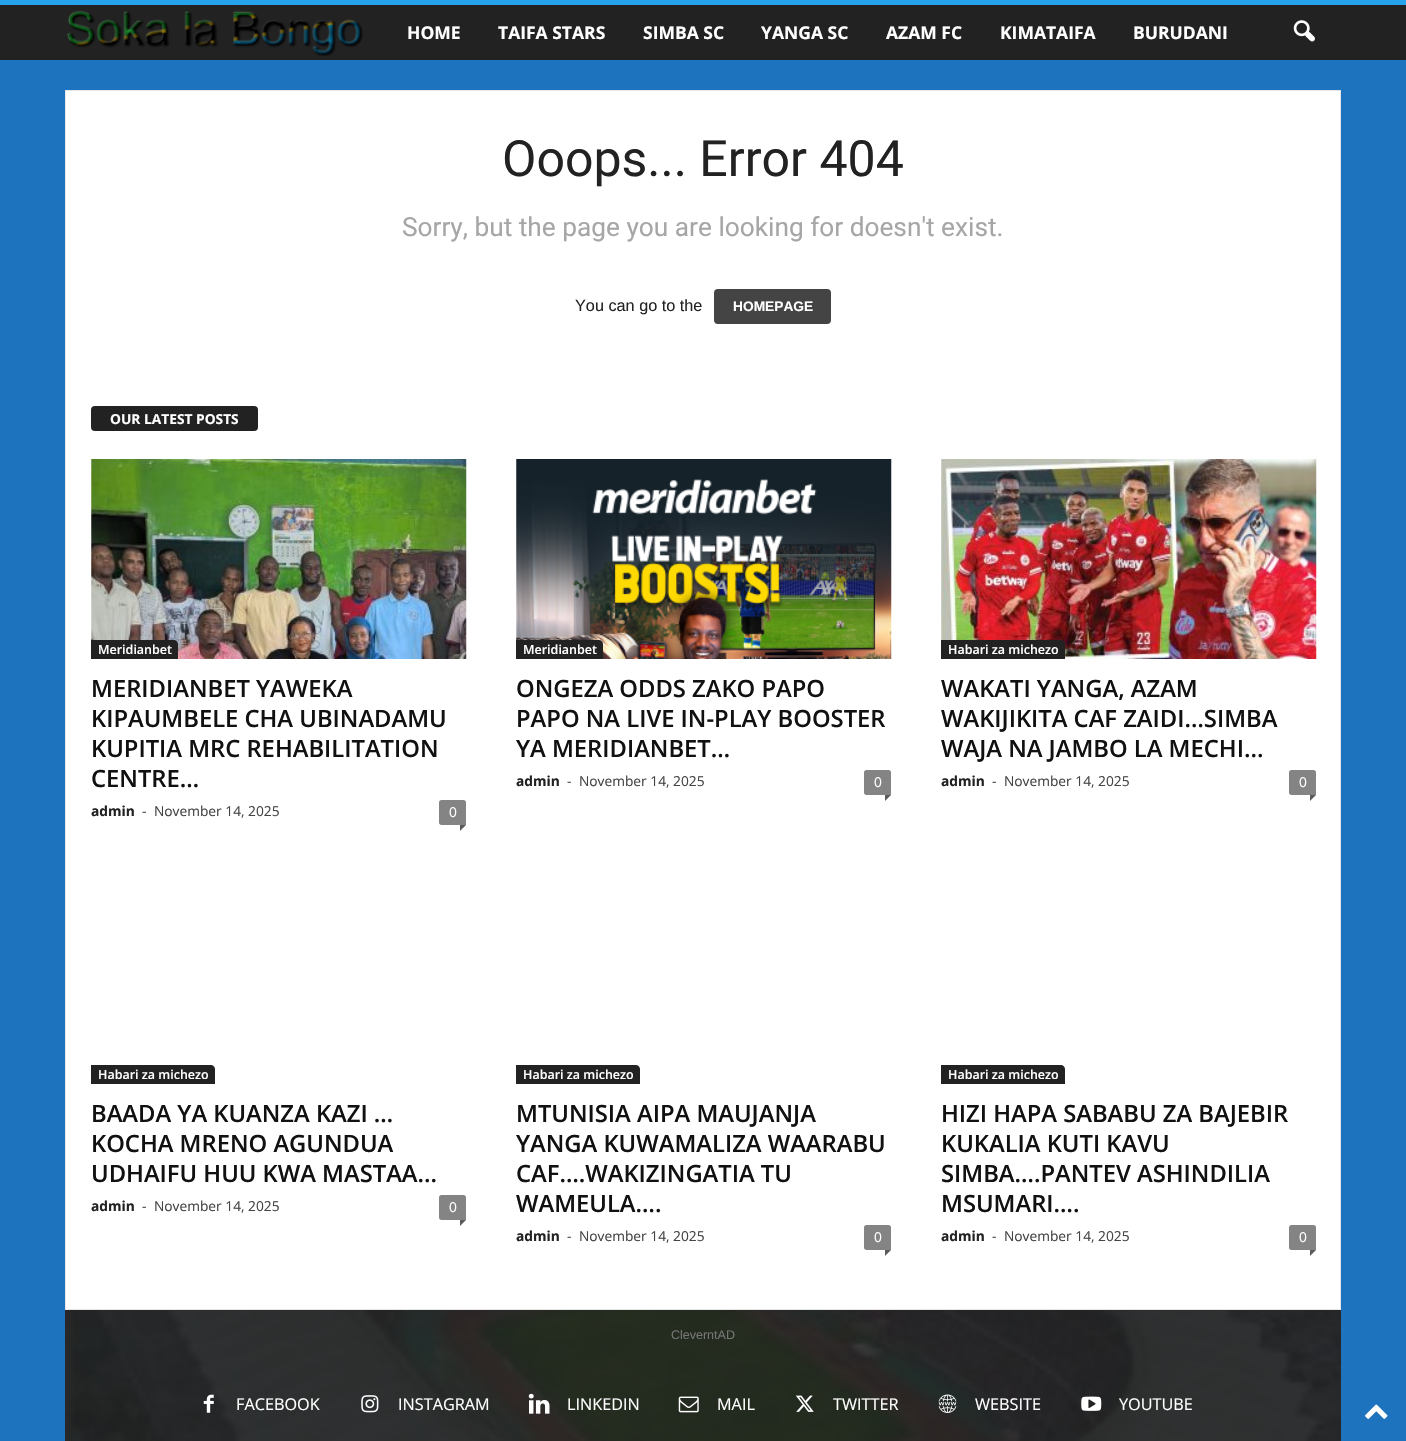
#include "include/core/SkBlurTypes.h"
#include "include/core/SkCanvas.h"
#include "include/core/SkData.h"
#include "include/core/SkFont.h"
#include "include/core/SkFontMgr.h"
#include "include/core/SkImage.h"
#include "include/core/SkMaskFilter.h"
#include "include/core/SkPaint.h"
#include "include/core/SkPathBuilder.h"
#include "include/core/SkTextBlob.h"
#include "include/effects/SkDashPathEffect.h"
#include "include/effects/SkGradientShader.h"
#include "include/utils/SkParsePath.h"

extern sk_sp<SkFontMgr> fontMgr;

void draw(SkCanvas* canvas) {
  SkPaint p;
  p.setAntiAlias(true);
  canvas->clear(SkColorSetRGB(30, 115, 190));
  p.setColor(SkColorSetRGB(34, 34, 34));
  canvas->drawRect(SkRect::MakeLTRB(0, 5, 1406, 60), p);
  p.setColor(SkColorSetRGB(37, 164, 237));
  canvas->drawRect(SkRect::MakeLTRB(0, 0, 1406, 5), p);
  canvas->drawImageRect(SkImages::DeferredFromEncodedData(SkData::MakeFromFileName("images/1.png")), SkRect::MakeLTRB(67, 10, 363, 56), SkSamplingOptions());
  canvas->drawImageRect(SkImages::DeferredFromEncodedData(SkData::MakeFromFileName("images/2.png")), SkRect::MakeLTRB(1293, 20, 1315, 42), SkSamplingOptions());
  p.setColor(SkColorSetRGB(230, 230, 230));
  canvas->drawRect(SkRect::MakeLTRB(65, 90, 1341, 91), p);
  p.setColor(SK_ColorWHITE);
  canvas->drawRect(SkRect::MakeLTRB(66, 91, 1340, 1309), p);
  p.setColor(SkColorSetRGB(230, 230, 230));
  canvas->drawRect(SkRect::MakeLTRB(65, 1309, 1341, 1310), p);
  canvas->drawRect(SkRect::MakeLTRB(65, 91, 66, 1309), p);
  p.setColor(SkColorSetRGB(68, 68, 68));
  canvas->drawRoundRect(SkRect::MakeLTRB(714, 289, 831, 324), 4, 4, p);
  p.setColor(SkColorSetRGB(34, 34, 34));
  canvas->drawRoundRect(SkRect::MakeLTRB(91, 406, 258, 431), 4, 4, p);
  canvas->drawImageRect(SkImages::DeferredFromEncodedData(SkData::MakeFromFileName("images/3.png")), SkRect::MakeLTRB(91, 459, 467, 659), SkSamplingOptions());
  canvas->drawPath(SkPathBuilder().moveTo(91, 640).lineTo(174, 640).cubicTo(176, 640, 178, 642, 178, 644).lineTo(178, 659).lineTo(91, 659).close().detach(), p);
  p.setColor(SkColorSetRGB(132, 132, 132));
  canvas->drawPath(SkPathBuilder().moveTo(441.5f, 800).lineTo(463.5f, 800).cubicTo(465, 800, 466, 801, 466, 802.5f).lineTo(466, 825).lineTo(441.5f, 825).cubicTo(440, 825, 439, 824, 439, 822.5f).lineTo(439, 802.5f).cubicTo(439, 801, 440, 800, 441.5f, 800).close().detach(), p);
  p.setColor(SkColorSetRGB(91, 91, 91));
  canvas->drawPath(SkPathBuilder().moveTo(460, 825).lineTo(466, 825).lineTo(460, 831).close().detach(), p);
  canvas->drawImageRect(SkImages::DeferredFromEncodedData(SkData::MakeFromFileName("images/4.png")), SkRect::MakeLTRB(516, 459, 892, 659), SkSamplingOptions());
  p.setColor(SkColorSetRGB(34, 34, 34));
  canvas->drawPath(SkPathBuilder().moveTo(516, 640).lineTo(599, 640).cubicTo(601, 640, 603, 642, 603, 644).lineTo(603, 659).lineTo(516, 659).close().detach(), p);
  p.setColor(SkColorSetRGB(132, 132, 132));
  canvas->drawPath(SkPathBuilder().moveTo(866.5f, 770).lineTo(888.5f, 770).cubicTo(890, 770, 891, 771, 891, 772.5f).lineTo(891, 795).lineTo(866.5f, 795).cubicTo(865, 795, 864, 794, 864, 792.5f).lineTo(864, 772.5f).cubicTo(864, 771, 865, 770, 866.5f, 770).close().detach(), p);
  p.setColor(SkColorSetRGB(91, 91, 91));
  canvas->drawPath(SkPathBuilder().moveTo(885, 795).lineTo(891, 795).lineTo(885, 801).close().detach(), p);
  canvas->drawImageRect(SkImages::DeferredFromEncodedData(SkData::MakeFromFileName("images/5.png")), SkRect::MakeLTRB(941, 459, 1317, 659), SkSamplingOptions());
  p.setColor(SkColorSetRGB(34, 34, 34));
  canvas->drawPath(SkPathBuilder().moveTo(941, 640).lineTo(1061, 640).cubicTo(1063, 640, 1065, 642, 1065, 644).lineTo(1065, 659).lineTo(941, 659).close().detach(), p);
  p.setColor(SkColorSetRGB(132, 132, 132));
  canvas->drawPath(SkPathBuilder().moveTo(1291.5f, 770).lineTo(1313.5f, 770).cubicTo(1315, 770, 1316, 771, 1316, 772.5f).lineTo(1316, 795).lineTo(1291.5f, 795).cubicTo(1290, 795, 1289, 794, 1289, 792.5f).lineTo(1289, 772.5f).cubicTo(1289, 771, 1290, 770, 1291.5f, 770).close().detach(), p);
  p.setColor(SkColorSetRGB(91, 91, 91));
  canvas->drawPath(SkPathBuilder().moveTo(1310, 795).lineTo(1316, 795).lineTo(1310, 801).close().detach(), p);
  p.setColor(SkColorSetRGB(34, 34, 34));
  canvas->drawPath(SkPathBuilder().moveTo(91, 1065).lineTo(211, 1065).cubicTo(213, 1065, 215, 1067, 215, 1069).lineTo(215, 1084).lineTo(91, 1084).close().detach(), p);
  p.setColor(SkColorSetRGB(132, 132, 132));
  canvas->drawPath(SkPathBuilder().moveTo(441.5f, 1195).lineTo(463.5f, 1195).cubicTo(465, 1195, 466, 1196, 466, 1197.5f).lineTo(466, 1220).lineTo(441.5f, 1220).cubicTo(440, 1220, 439, 1219, 439, 1217.5f).lineTo(439, 1197.5f).cubicTo(439, 1196, 440, 1195, 441.5f, 1195).close().detach(), p);
  p.setColor(SkColorSetRGB(91, 91, 91));
  canvas->drawPath(SkPathBuilder().moveTo(460, 1220).lineTo(466, 1220).lineTo(460, 1226).close().detach(), p);
  p.setColor(SkColorSetRGB(34, 34, 34));
  canvas->drawPath(SkPathBuilder().moveTo(516, 1065).lineTo(636, 1065).cubicTo(638, 1065, 640, 1067, 640, 1069).lineTo(640, 1084).lineTo(516, 1084).close().detach(), p);
  p.setColor(SkColorSetRGB(132, 132, 132));
  canvas->drawPath(SkPathBuilder().moveTo(866.5f, 1225).lineTo(888.5f, 1225).cubicTo(890, 1225, 891, 1226, 891, 1227.5f).lineTo(891, 1250).lineTo(866.5f, 1250).cubicTo(865, 1250, 864, 1249, 864, 1247.5f).lineTo(864, 1227.5f).cubicTo(864, 1226, 865, 1225, 866.5f, 1225).close().detach(), p);
  p.setColor(SkColorSetRGB(91, 91, 91));
  canvas->drawPath(SkPathBuilder().moveTo(885, 1250).lineTo(891, 1250).lineTo(885, 1256).close().detach(), p);
  p.setColor(SkColorSetRGB(34, 34, 34));
  canvas->drawPath(SkPathBuilder().moveTo(941, 1065).lineTo(1061, 1065).cubicTo(1063, 1065, 1065, 1067, 1065, 1069).lineTo(1065, 1084).lineTo(941, 1084).close().detach(), p);
  p.setColor(SkColorSetRGB(132, 132, 132));
  canvas->drawPath(SkPathBuilder().moveTo(1291.5f, 1225).lineTo(1313.5f, 1225).cubicTo(1315, 1225, 1316, 1226, 1316, 1227.5f).lineTo(1316, 1250).lineTo(1291.5f, 1250).cubicTo(1290, 1250, 1289, 1249, 1289, 1247.5f).lineTo(1289, 1227.5f).cubicTo(1289, 1226, 1290, 1225, 1291.5f, 1225).close().detach(), p);
  p.setColor(SkColorSetRGB(91, 91, 91));
  canvas->drawPath(SkPathBuilder().moveTo(1310, 1250).lineTo(1316, 1250).lineTo(1310, 1256).close().detach(), p);
  p.setColor(SkColorSetRGB(230, 230, 230));
  canvas->drawRect(SkRect::MakeLTRB(1340, 91, 1341, 1309), p);
  p.setColor(SkColorSetRGB(34, 34, 34));
  canvas->drawRect(SkRect::MakeLTRB(65, 1310, 1341, 1441), p);
  canvas->drawImageRect(SkImages::DeferredFromEncodedData(SkData::MakeFromFileName("images/6.png")), SkRect::MakeLTRB(65, 1310, 1341, 1441), SkSamplingOptions());
  canvas->drawImageRect(SkImages::DeferredFromEncodedData(SkData::MakeFromFileName("images/7.png")), SkRect::MakeLTRB(203, 1394, 214, 1413), SkSamplingOptions());
  canvas->drawImageRect(SkImages::DeferredFromEncodedData(SkData::MakeFromFileName("images/8.png")), SkRect::MakeLTRB(361, 1395, 379, 1413), SkSamplingOptions());
  canvas->drawImageRect(SkImages::DeferredFromEncodedData(SkData::MakeFromFileName("images/9.png")), SkRect::MakeLTRB(528, 1393, 550, 1414), SkSamplingOptions());
  canvas->drawImageRect(SkImages::DeferredFromEncodedData(SkData::MakeFromFileName("images/10.png")), SkRect::MakeLTRB(678, 1396, 699, 1413), SkSamplingOptions());
  canvas->drawImageRect(SkImages::DeferredFromEncodedData(SkData::MakeFromFileName("images/11.png")), SkRect::MakeLTRB(795, 1395, 814, 1412), SkSamplingOptions());
  canvas->drawImageRect(SkImages::DeferredFromEncodedData(SkData::MakeFromFileName("images/12.png")), SkRect::MakeLTRB(938, 1394, 957, 1413), SkSamplingOptions());
  canvas->drawImageRect(SkImages::DeferredFromEncodedData(SkData::MakeFromFileName("images/13.png")), SkRect::MakeLTRB(1081, 1396, 1102, 1411), SkSamplingOptions());
  canvas->drawImageRect(SkImages::DeferredFromEncodedData(SkData::MakeFromFileName("images/14.png")), SkRect::MakeLTRB(1365, 1404, 1388, 1419), SkSamplingOptions());
  SkFont font1(fontMgr->matchFamilyStyle("Open Sans", SkFontStyle::Bold()), 17.5f);
  font1.setSubpixel(true);
  p.setColor(SK_ColorWHITE);
  canvas->drawString("HOME", 407, 39, font1, p);
  canvas->drawString("TAIFA STARS", 498, 39, font1, p);
  canvas->drawString("SIMBA SC", 643, 39, font1, p);
  canvas->drawString("YANGA SC", 761, 39, font1, p);
  canvas->drawString("AZAM FC", 886, 39, font1, p);
  canvas->drawString("KIMATAIFA", 1000, 39, font1, p);
  canvas->drawString("BURUDANI", 1133, 39, font1, p);
  SkFont font2(fontMgr->matchFamilyStyle("Roboto", SkFontStyle::Normal()), 50);
  font2.setSubpixel(true);
  p.setColor(SkColorSetRGB(34, 34, 34));
  canvas->drawString("Ooops... Error 404", 502, 176, font2, p);
  SkFont font3(fontMgr->matchFamilyStyle("Roboto", SkFontStyle::Normal()), 26.25f);
  font3.setSubpixel(true);
  p.setColor(SkColorSetRGB(166, 166, 166));
  canvas->drawString("Sorry, but the page you are looking for doesn't exist.", 402, 236, font3, p);
  SkFont font4(fontMgr->matchFamilyStyle("Liberation Sans", SkFontStyle::Normal()), 16.25f);
  font4.setSubpixel(true);
  p.setColor(SkColorSetRGB(34, 34, 34));
  canvas->drawString("You can go to the", 575, 311, font4, p);
  SkFont font5(fontMgr->matchFamilyStyle("Liberation Sans", SkFontStyle::Bold()), 13.75f);
  font5.setSubpixel(true);
  p.setColor(SK_ColorWHITE);
  canvas->drawString("HOMEPAGE", 733, 311, font5, p);
  SkFont font6(fontMgr->matchFamilyStyle("Open Sans", SkFontStyle::Bold()), 13.75f);
  font6.setSubpixel(true);
  canvas->drawString("OUR LATEST POSTS", 110, 424, font6, p);
  SkFont font7(fontMgr->matchFamilyStyle("Open Sans", SkFontStyle(600, SkFontStyle::kNormal_Width, SkFontStyle::kUpright_Slant)), 12.5f);
  font7.setSubpixel(true);
  canvas->drawString("Meridianbet", 98, 654, font7, p);
  SkFont font8(fontMgr->matchFamilyStyle("Open Sans", SkFontStyle(600, SkFontStyle::kNormal_Width, SkFontStyle::kUpright_Slant)), 23.75f);
  font8.setSubpixel(true);
  p.setColor(SkColorSetRGB(17, 17, 17));
  canvas->drawString("MERIDIANBET YAWEKA", 91, 697, font8, p);
  canvas->drawString("KIPAUMBELE CHA UBINADAMU", 91, 727, font8, p);
  canvas->drawString("KUPITIA MRC REHABILITATION", 91, 757, font8, p);
  canvas->drawString("CENTRE…", 91, 787, font8, p);
  p.setColor(SkColorSetRGB(34, 34, 34));
  canvas->drawString("admin", 91, 816, font6, p);
  SkFont font9(fontMgr->matchFamilyStyle("Open Sans", SkFontStyle::Normal()), 13.75f);
  font9.setSubpixel(true);
  p.setColor(SkColorSetRGB(68, 68, 68));
  canvas->drawString("-", 142, 816, font9, p);
  canvas->drawString("November 14, 2025", 154, 816, font9, p);
  p.setColor(SK_ColorWHITE);
  canvas->drawString("0", 449, 817, font9, p);
  canvas->drawString("Meridianbet", 523, 654, font7, p);
  p.setColor(SkColorSetRGB(17, 17, 17));
  canvas->drawString("ONGEZA ODDS ZAKO PAPO", 516, 697, font8, p);
  canvas->drawString("PAPO NA LIVE IN-PLAY BOOSTER", 516, 727, font8, p);
  canvas->drawString("YA MERIDIANBET…", 516, 757, font8, p);
  p.setColor(SkColorSetRGB(34, 34, 34));
  canvas->drawString("admin", 516, 786, font6, p);
  p.setColor(SkColorSetRGB(68, 68, 68));
  canvas->drawString("-", 567, 786, font9, p);
  canvas->drawString("November 14, 2025", 579, 786, font9, p);
  p.setColor(SK_ColorWHITE);
  canvas->drawString("0", 874, 787, font9, p);
  canvas->drawString("Habari za michezo", 948, 654, font7, p);
  p.setColor(SkColorSetRGB(17, 17, 17));
  canvas->drawString("WAKATI YANGA, AZAM", 941, 697, font8, p);
  canvas->drawString("WAKIJIKITA CAF ZAIDI…SIMBA", 941, 727, font8, p);
  canvas->drawString("WAJA NA JAMBO LA MECHI...", 941, 757, font8, p);
  p.setColor(SkColorSetRGB(34, 34, 34));
  canvas->drawString("admin", 941, 786, font6, p);
  p.setColor(SkColorSetRGB(68, 68, 68));
  canvas->drawString("-", 992, 786, font9, p);
  canvas->drawString("November 14, 2025", 1004, 786, font9, p);
  p.setColor(SK_ColorWHITE);
  canvas->drawString("0", 1299, 787, font9, p);
  canvas->drawString("Habari za michezo", 98, 1079, font7, p);
  p.setColor(SkColorSetRGB(17, 17, 17));
  canvas->drawString("BAADA YA KUANZA KAZI …", 91, 1122, font8, p);
  canvas->drawString("KOCHA MRENO AGUNDUA", 91, 1152, font8, p);
  canvas->drawString("UDHAIFU HUU KWA MASTAA...", 91, 1182, font8, p);
  p.setColor(SkColorSetRGB(34, 34, 34));
  canvas->drawString("admin", 91, 1211, font6, p);
  p.setColor(SkColorSetRGB(68, 68, 68));
  canvas->drawString("-", 142, 1211, font9, p);
  canvas->drawString("November 14, 2025", 154, 1211, font9, p);
  p.setColor(SK_ColorWHITE);
  canvas->drawString("0", 449, 1212, font9, p);
  canvas->drawString("Habari za michezo", 523, 1079, font7, p);
  p.setColor(SkColorSetRGB(17, 17, 17));
  canvas->drawString("MTUNISIA AIPA MAUJANJA", 516, 1122, font8, p);
  canvas->drawString("YANGA KUWAMALIZA WAARABU", 516, 1152, font8, p);
  canvas->drawString("CAF….WAKIZINGATIA TU", 516, 1182, font8, p);
  canvas->drawString("WAMEULA….", 516, 1212, font8, p);
  p.setColor(SkColorSetRGB(34, 34, 34));
  canvas->drawString("admin", 516, 1241, font6, p);
  p.setColor(SkColorSetRGB(68, 68, 68));
  canvas->drawString("-", 567, 1241, font9, p);
  canvas->drawString("November 14, 2025", 579, 1241, font9, p);
  p.setColor(SK_ColorWHITE);
  canvas->drawString("0", 874, 1242, font9, p);
  canvas->drawString("Habari za michezo", 948, 1079, font7, p);
  p.setColor(SkColorSetRGB(17, 17, 17));
  canvas->drawString("HIZI HAPA SABABU ZA BAJEBIR", 941, 1122, font8, p);
  canvas->drawString("KUKALIA KUTI KAVU", 941, 1152, font8, p);
  canvas->drawString("SIMBA….PANTEV ASHINDILIA", 941, 1182, font8, p);
  canvas->drawString("MSUMARI….", 941, 1212, font8, p);
  p.setColor(SkColorSetRGB(34, 34, 34));
  canvas->drawString("admin", 941, 1241, font6, p);
  p.setColor(SkColorSetRGB(68, 68, 68));
  canvas->drawString("-", 992, 1241, font9, p);
  canvas->drawString("November 14, 2025", 1004, 1241, font9, p);
  p.setColor(SK_ColorWHITE);
  canvas->drawString("0", 1299, 1242, font9, p);
  SkFont font10(fontMgr->matchFamilyStyle("Liberation Sans", SkFontStyle::Normal()), 12.5f);
  font10.setSubpixel(true);
  p.setColor(SkColorSetRGB(118, 118, 118));
  canvas->drawString("CleverntAD", 671, 1339, font10, p);
  SkFont font11(fontMgr->matchFamilyStyle("Open Sans", SkFontStyle::Normal()), 16.25f);
  font11.setSubpixel(true);
  p.setColor(SK_ColorWHITE);
  canvas->drawString("FACEBOOK", 236, 1410, font11, p);
  canvas->drawString("INSTAGRAM", 398, 1410, font11, p);
  canvas->drawString("LINKEDIN", 567, 1410, font11, p);
  canvas->drawString("MAIL", 717, 1410, font11, p);
  canvas->drawString("TWITTER", 833, 1410, font11, p);
  canvas->drawString("WEBSITE", 975, 1410, font11, p);
  canvas->drawString("YOUTUBE", 1119, 1410, font11, p);
}
